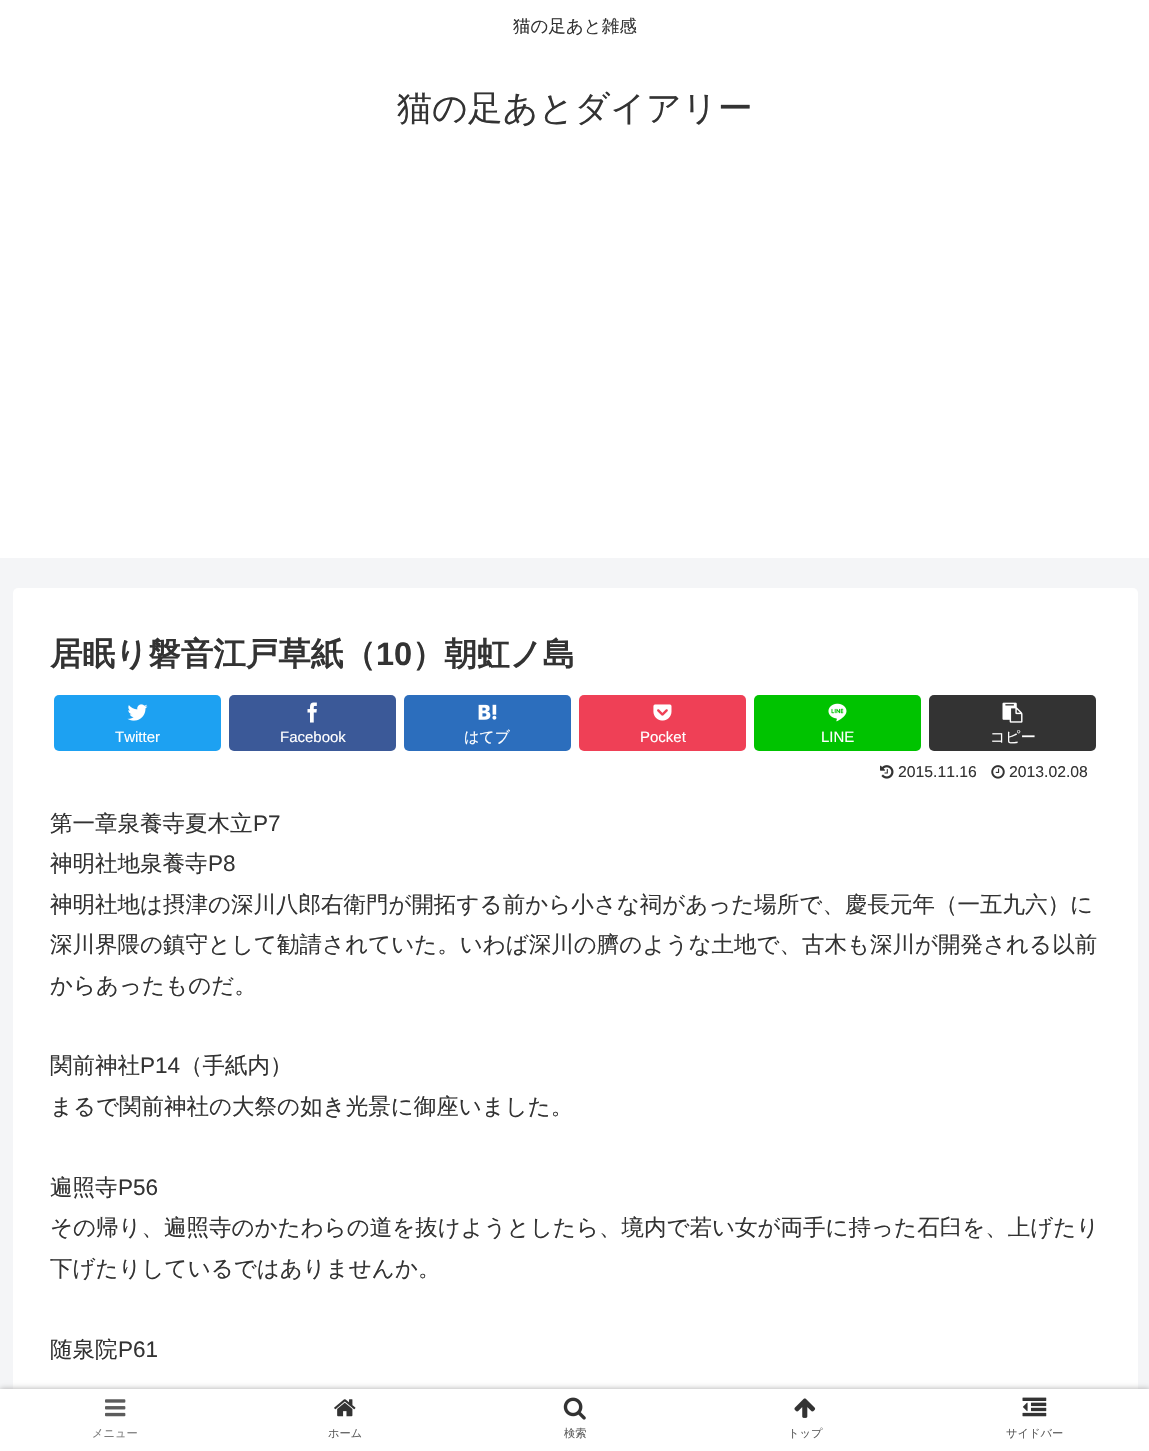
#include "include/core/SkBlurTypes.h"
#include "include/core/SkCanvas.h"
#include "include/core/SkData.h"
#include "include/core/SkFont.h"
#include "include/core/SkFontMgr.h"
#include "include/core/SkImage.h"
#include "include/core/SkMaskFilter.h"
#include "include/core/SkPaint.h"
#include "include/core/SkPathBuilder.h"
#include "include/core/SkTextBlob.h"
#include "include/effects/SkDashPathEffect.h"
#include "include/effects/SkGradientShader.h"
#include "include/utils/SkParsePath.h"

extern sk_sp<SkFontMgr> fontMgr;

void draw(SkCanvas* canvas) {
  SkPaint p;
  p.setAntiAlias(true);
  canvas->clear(SkColorSetRGB(244, 245, 247));
  p.setColor(SK_ColorWHITE);
  canvas->drawRect(SkRect::MakeLTRB(0, 0, 1149, 558), p);
  canvas->drawRoundRect(SkRect::MakeLTRB(13, 588, 1138, 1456), 5, 5, p);
  p.setColor(SkColorSetRGB(29, 161, 242));
  canvas->drawRoundRect(SkRect::MakeLTRB(54, 695, 221, 751), 5, 5, p);
  canvas->drawImageRect(SkImages::DeferredFromEncodedData(SkData::MakeFromFileName("images/1.png")), SkRect::MakeLTRB(127, 704, 148, 721), SkSamplingOptions());
  p.setColor(SkColorSetRGB(59, 89, 152));
  canvas->drawRoundRect(SkRect::MakeLTRB(229, 695, 396, 751), 5, 5, p);
  canvas->drawImageRect(SkImages::DeferredFromEncodedData(SkData::MakeFromFileName("images/2.png")), SkRect::MakeLTRB(307, 702, 317, 723), SkSamplingOptions());
  p.setColor(SkColorSetRGB(44, 110, 189));
  canvas->drawRoundRect(SkRect::MakeLTRB(404, 695, 571, 751), 5, 5, p);
  canvas->drawImageRect(SkImages::DeferredFromEncodedData(SkData::MakeFromFileName("images/3.png")), SkRect::MakeLTRB(478, 704, 497, 720), SkSamplingOptions());
  p.setColor(SkColorSetRGB(239, 64, 86));
  canvas->drawRoundRect(SkRect::MakeLTRB(579, 695, 746, 751), 5, 5, p);
  canvas->drawImageRect(SkImages::DeferredFromEncodedData(SkData::MakeFromFileName("images/4.png")), SkRect::MakeLTRB(653, 704, 672, 721), SkSamplingOptions());
  p.setColor(SkColorSetRGB(0, 195, 0));
  canvas->drawRoundRect(SkRect::MakeLTRB(754, 695, 921, 751), 5, 5, p);
  canvas->drawImageRect(SkImages::DeferredFromEncodedData(SkData::MakeFromFileName("images/5.png")), SkRect::MakeLTRB(828, 703, 847, 722), SkSamplingOptions());
  p.setColor(SkColorSetRGB(51, 51, 51));
  canvas->drawRoundRect(SkRect::MakeLTRB(929, 695, 1096, 751), 5, 5, p);
  canvas->drawImageRect(SkImages::DeferredFromEncodedData(SkData::MakeFromFileName("images/6.png")), SkRect::MakeLTRB(1002, 702, 1023, 723), SkSamplingOptions());
  canvas->drawImageRect(SkImages::DeferredFromEncodedData(SkData::MakeFromFileName("images/7.png")), SkRect::MakeLTRB(880, 765, 894, 779), SkSamplingOptions());
  canvas->drawImageRect(SkImages::DeferredFromEncodedData(SkData::MakeFromFileName("images/8.png")), SkRect::MakeLTRB(991, 765, 1005, 779), SkSamplingOptions());
  p.setColor(SkColorSetRGB(169, 169, 169));
  p.setMaskFilter(SkMaskFilter::MakeBlur(kNormal_SkBlurStyle, 3));
  canvas->drawRect(SkRect::MakeLTRB(0, 1389, 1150, 1451), p);
  p.setMaskFilter(nullptr);
  p.setColor(SK_ColorWHITE);
  canvas->drawRect(SkRect::MakeLTRB(0, 1389, 1149, 1451), p);
  canvas->drawImageRect(SkImages::DeferredFromEncodedData(SkData::MakeFromFileName("images/9.png")), SkRect::MakeLTRB(105, 1399, 126, 1417), SkSamplingOptions());
  canvas->drawImageRect(SkImages::DeferredFromEncodedData(SkData::MakeFromFileName("images/10.png")), SkRect::MakeLTRB(334, 1399, 356, 1417), SkSamplingOptions());
  canvas->drawImageRect(SkImages::DeferredFromEncodedData(SkData::MakeFromFileName("images/11.png")), SkRect::MakeLTRB(563, 1397, 586, 1420), SkSamplingOptions());
  canvas->drawImageRect(SkImages::DeferredFromEncodedData(SkData::MakeFromFileName("images/12.png")), SkRect::MakeLTRB(794, 1398, 816, 1418), SkSamplingOptions());
  canvas->drawImageRect(SkImages::DeferredFromEncodedData(SkData::MakeFromFileName("images/13.png")), SkRect::MakeLTRB(1022, 1397, 1047, 1417), SkSamplingOptions());
  SkFont font1(fontMgr->matchFamilyStyle("WenQuanYi Zen Hei", SkFontStyle(500, SkFontStyle::kNormal_Width, SkFontStyle::kUpright_Slant)), 17.5f);
  font1.setSubpixel(true);
  p.setColor(SkColorSetRGB(51, 51, 51));
  canvas->drawString("猫の足あと雑感", 513, 32, font1, p);
  SkFont font2(fontMgr->matchFamilyStyle("WenQuanYi Zen Hei", SkFontStyle(500, SkFontStyle::kNormal_Width, SkFontStyle::kUpright_Slant)), 35);
  font2.setSubpixel(true);
  canvas->drawString("猫の足あとダイアリー", 397, 120, font2, p);
  SkFont font3(fontMgr->matchFamilyStyle("WenQuanYi Zen Hei", SkFontStyle::Bold()), 32.5f);
  font3.setSubpixel(true);
  canvas->drawString("居眠り磐音江戸草紙（", 50, 665, font3, p);
  SkFont font4(fontMgr->matchFamilyStyle("Liberation Sans", SkFontStyle::Bold()), 32.5f);
  font4.setSubpixel(true);
  canvas->drawString("10", 376, 665, font4, p);
  canvas->drawString("）朝虹ノ島", 412, 665, font3, p);
  SkFont font5(fontMgr->matchFamilyStyle("Liberation Sans", SkFontStyle::Normal()), 15);
  font5.setSubpixel(true);
  p.setColor(SK_ColorWHITE);
  canvas->drawString("Twitter", 115, 742, font5, p);
  canvas->drawString("Facebook", 280, 742, font5, p);
  SkFont font6(fontMgr->matchFamilyStyle("WenQuanYi Zen Hei", SkFontStyle(500, SkFontStyle::kNormal_Width, SkFontStyle::kUpright_Slant)), 15);
  font6.setSubpixel(true);
  canvas->drawString("はてブ", 464, 742, font6, p);
  canvas->drawString("Pocket", 640, 742, font5, p);
  canvas->drawString("LINE", 821, 742, font5, p);
  canvas->drawString("コピー", 990, 742, font6, p);
  SkFont font7(fontMgr->matchFamilyStyle("Liberation Sans", SkFontStyle::Normal()), 15.75f);
  font7.setSubpixel(true);
  p.setColor(SkColorSetRGB(51, 51, 51));
  canvas->drawString("2015.11.16", 898, 777, font7, p);
  canvas->drawString("2013.02.08", 1009, 777, font7, p);
  SkFont font8(fontMgr->matchFamilyStyle("WenQuanYi Zen Hei", SkFontStyle(500, SkFontStyle::kNormal_Width, SkFontStyle::kUpright_Slant)), 22.5f);
  font8.setSubpixel(true);
  canvas->drawString("第一章泉養寺夏木立", 50, 831, font8, p);
  SkFont font9(fontMgr->matchFamilyStyle("Liberation Sans", SkFontStyle::Normal()), 22.5f);
  font9.setSubpixel(true);
  canvas->drawString("P7", 253, 831, font9, p);
  canvas->drawString("神明社地泉養寺", 50, 871, font8, p);
  canvas->drawString("P8", 208, 871, font9, p);
  canvas->drawString("神明社地は摂津の深川八郎右衛門が開拓する前から小さな祠があった場所で、慶長元年（一五九六）に", 50, 912, font8, p);
  canvas->drawString("深川界隈の鎮守として勧請されていた。いわば深川の臍のような土地で、古木も深川が開発される以前", 50, 952, font8, p);
  canvas->drawString("からあったものだ。", 50, 993, font8, p);
  canvas->drawString("関前神社", 50, 1073, font8, p);
  canvas->drawString("P14", 140, 1073, font9, p);
  canvas->drawString("（手紙内）", 180, 1073, font8, p);
  canvas->drawString("まるで関前神社の大祭の如き光景に御座いました。", 50, 1114, font8, p);
  canvas->drawString("遍照寺", 50, 1195, font8, p);
  canvas->drawString("P56", 118, 1195, font9, p);
  canvas->drawString("その帰り、遍照寺のかたわらの道を抜けようとしたら、境内で若い女が両手に持った石臼を、上げたり", 50, 1235, font8, p);
  canvas->drawString("下げたりしているではありませんか。", 50, 1276, font8, p);
  canvas->drawString("随泉院", 50, 1357, font8, p);
  canvas->drawString("P61", 118, 1357, font9, p);
  SkFont font10(fontMgr->matchFamilyStyle("WenQuanYi Zen Hei", SkFontStyle(500, SkFontStyle::kNormal_Width, SkFontStyle::kUpright_Slant)), 11.25f);
  font10.setSubpixel(true);
  p.setColor(SkColorSetRGB(124, 124, 124));
  canvas->drawString("メニュー", 92, 1437, font10, p);
  p.setColor(SkColorSetRGB(92, 92, 92));
  canvas->drawString("ホーム", 328, 1437, font10, p);
  canvas->drawString("検索", 564, 1437, font10, p);
  canvas->drawString("トップ", 788, 1437, font10, p);
  canvas->drawString("サイドバー", 1006, 1437, font10, p);
}
